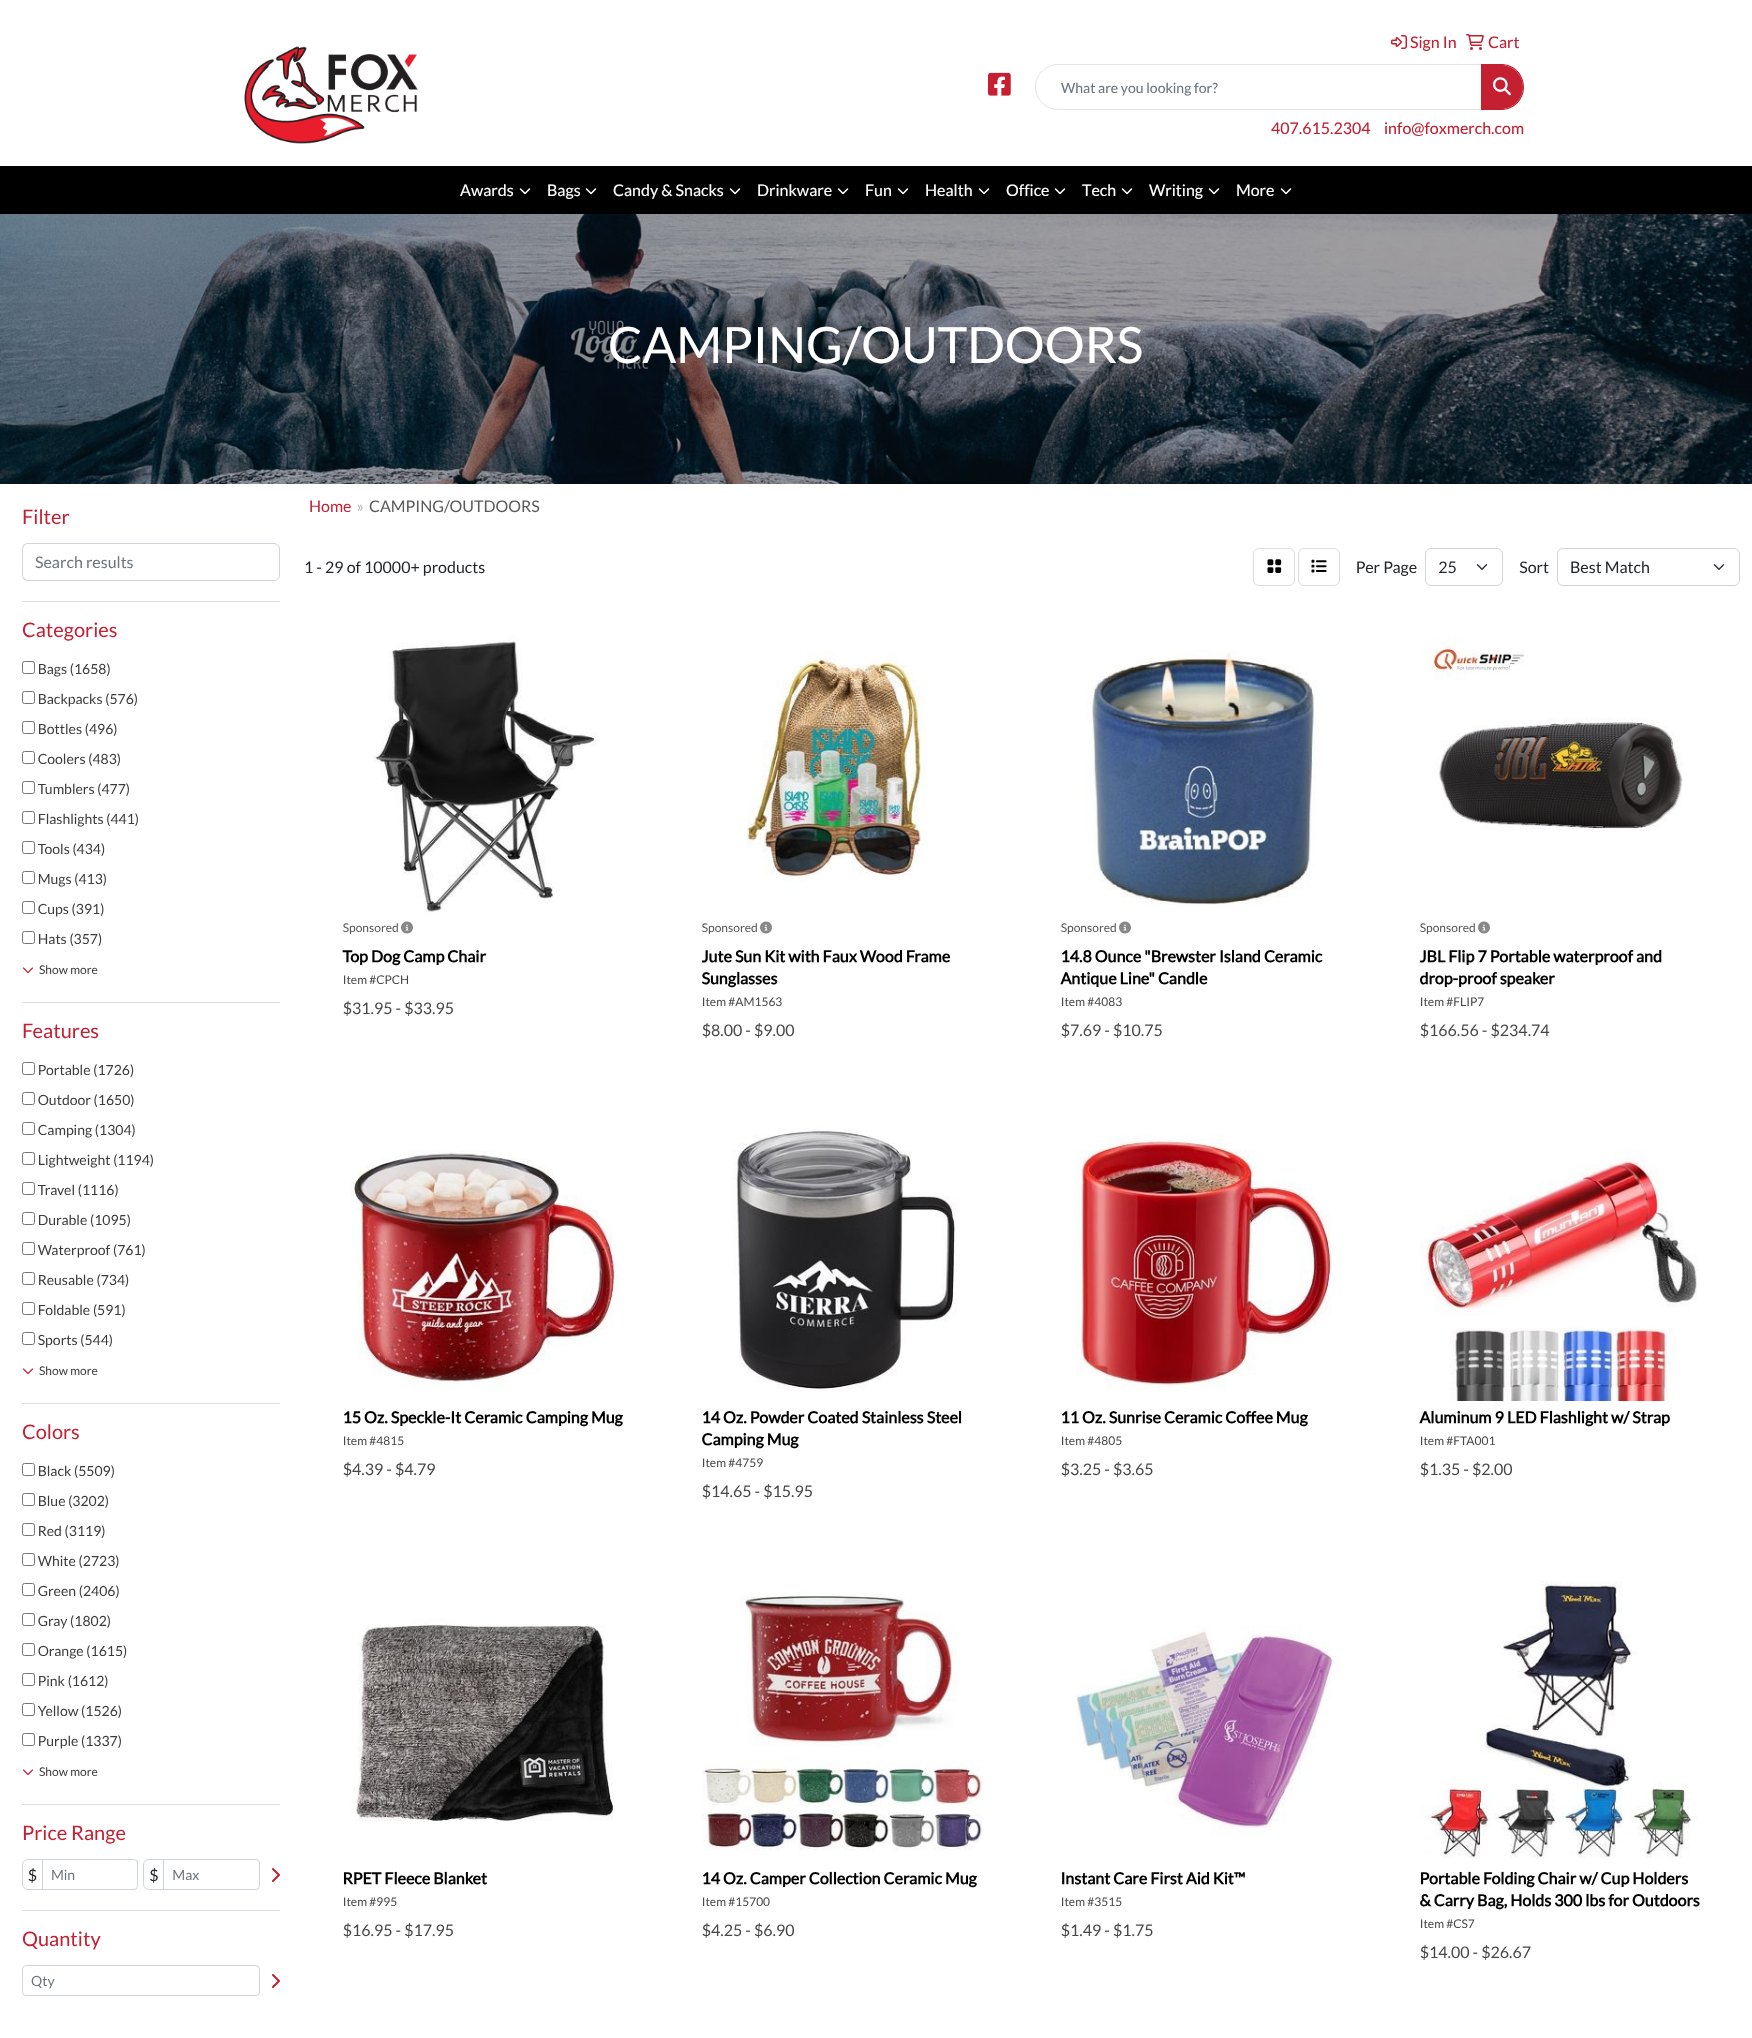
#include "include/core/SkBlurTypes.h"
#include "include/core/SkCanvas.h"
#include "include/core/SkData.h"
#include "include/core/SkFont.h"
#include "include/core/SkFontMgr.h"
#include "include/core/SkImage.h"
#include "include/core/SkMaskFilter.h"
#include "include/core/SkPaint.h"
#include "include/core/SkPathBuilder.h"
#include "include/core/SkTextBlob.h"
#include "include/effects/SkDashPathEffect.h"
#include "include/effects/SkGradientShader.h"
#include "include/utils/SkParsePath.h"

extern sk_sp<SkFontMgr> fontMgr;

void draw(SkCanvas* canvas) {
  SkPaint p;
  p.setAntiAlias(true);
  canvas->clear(SK_ColorWHITE);
  canvas->drawImageRect(SkImages::DeferredFromEncodedData(SkData::MakeFromFileName("images/1.png")), SkRect::MakeLTRB(244, 46, 418, 144), SkSamplingOptions());
  canvas->drawImageRect(SkImages::DeferredFromEncodedData(SkData::MakeFromFileName("images/2.png")), SkRect::MakeLTRB(1391, 35, 1407, 49), SkSamplingOptions());
  canvas->drawImageRect(SkImages::DeferredFromEncodedData(SkData::MakeFromFileName("images/3.png")), SkRect::MakeLTRB(1466, 34, 1484, 50), SkSamplingOptions());
  canvas->drawImageRect(SkImages::DeferredFromEncodedData(SkData::MakeFromFileName("images/4.png")), SkRect::MakeLTRB(988, 72, 1011, 96), SkSamplingOptions());
  p.setStyle(SkPaint::kStroke_Style);
  p.setStrokeWidth(1);
  p.setColor(SkColorSetRGB(228, 228, 228));
  canvas->drawPath(SkPathBuilder().moveTo(1058, 64.5f).lineTo(1481.5f, 64.5f).lineTo(1481.5f, 109.5f).lineTo(1058, 109.5f).cubicTo(1045.5f, 109.5f, 1035.5f, 99.5f, 1035.5f, 87).cubicTo(1035.5f, 74.5f, 1045.5f, 64.5f, 1058, 64.5f).close().detach(), p);
  p.setStyle(SkPaint::kFill_Style);
  p.setColor(SkColorSetRGB(196, 32, 50));
  canvas->drawPath(SkPathBuilder().moveTo(1481, 65).lineTo(1501, 65).cubicTo(1513, 65, 1523, 75, 1523, 87).cubicTo(1523, 99, 1513, 109, 1501, 109).lineTo(1481, 109).close().detach(), p);
  canvas->drawPath(SkPathBuilder(SkPathFillType::kEvenOdd).moveTo(1481, 64).lineTo(1501, 64).cubicTo(1514, 64, 1524, 74, 1524, 87).cubicTo(1524, 100, 1514, 110, 1501, 110).lineTo(1481, 110).close().moveTo(1481, 65).lineTo(1501, 65).cubicTo(1513, 65, 1523, 75, 1523, 87).cubicTo(1523, 99, 1513, 109, 1501, 109).lineTo(1481, 109).close().detach(), p);
  canvas->drawImageRect(SkImages::DeferredFromEncodedData(SkData::MakeFromFileName("images/5.png")), SkRect::MakeLTRB(1493, 77, 1511, 96), SkSamplingOptions());
  p.setColor(SK_ColorBLACK);
  canvas->drawRect(SkRect::MakeLTRB(0, 166, 1752, 214), p);
  canvas->drawImageRect(SkImages::DeferredFromEncodedData(SkData::MakeFromFileName("images/6.png")), SkRect::MakeLTRB(519, 188, 531, 195), SkSamplingOptions());
  canvas->drawImageRect(SkImages::DeferredFromEncodedData(SkData::MakeFromFileName("images/6.png")), SkRect::MakeLTRB(585, 188, 597, 195), SkSamplingOptions());
  canvas->drawImageRect(SkImages::DeferredFromEncodedData(SkData::MakeFromFileName("images/6.png")), SkRect::MakeLTRB(729, 188, 741, 195), SkSamplingOptions());
  canvas->drawImageRect(SkImages::DeferredFromEncodedData(SkData::MakeFromFileName("images/6.png")), SkRect::MakeLTRB(837, 188, 849, 195), SkSamplingOptions());
  canvas->drawImageRect(SkImages::DeferredFromEncodedData(SkData::MakeFromFileName("images/6.png")), SkRect::MakeLTRB(897, 188, 909, 195), SkSamplingOptions());
  canvas->drawImageRect(SkImages::DeferredFromEncodedData(SkData::MakeFromFileName("images/6.png")), SkRect::MakeLTRB(978, 188, 990, 195), SkSamplingOptions());
  canvas->drawImageRect(SkImages::DeferredFromEncodedData(SkData::MakeFromFileName("images/6.png")), SkRect::MakeLTRB(1054, 188, 1066, 195), SkSamplingOptions());
  canvas->drawImageRect(SkImages::DeferredFromEncodedData(SkData::MakeFromFileName("images/6.png")), SkRect::MakeLTRB(1121, 188, 1133, 195), SkSamplingOptions());
  canvas->drawImageRect(SkImages::DeferredFromEncodedData(SkData::MakeFromFileName("images/6.png")), SkRect::MakeLTRB(1208, 188, 1220, 195), SkSamplingOptions());
  canvas->drawImageRect(SkImages::DeferredFromEncodedData(SkData::MakeFromFileName("images/6.png")), SkRect::MakeLTRB(1280, 188, 1292, 195), SkSamplingOptions());
  canvas->drawImageRect(SkImages::DeferredFromEncodedData(SkData::MakeFromFileName("images/7.png")), SkRect::MakeLTRB(0, 214, 1752, 484), SkSamplingOptions());
  canvas->drawImageRect(SkImages::DeferredFromEncodedData(SkData::MakeFromFileName("images/8.png")), SkRect::MakeLTRB(22, 500, 1740, 1996), SkSamplingOptions());
  SkFont font1(fontMgr->matchFamilyStyle("Lato", SkFontStyle::Normal()), 16);
  font1.setSubpixel(true);
  p.setColor(SkColorSetRGB(196, 32, 50));
  canvas->drawString("Sign In", 1410, 48, font1, p);
  canvas->drawString("Cart", 1488, 48, font1, p);
  SkFont font2(fontMgr->matchFamilyStyle("Lato", SkFontStyle::Normal()), 14);
  font2.setSubpixel(true);
  p.setColor(SkColorSetRGB(108, 117, 125));
  canvas->drawString("What are you looking for?", 1061, 93, font2, p);
  p.setColor(SkColorSetRGB(196, 32, 50));
  canvas->drawString("407.615.2304", 1271, 134, font1, p);
  canvas->drawString("info@foxmerch.com", 1384, 134, font1, p);
  p.setColor(SK_ColorWHITE);
  canvas->drawString("Awards", 460, 196, font1, p);
  canvas->drawString("Bags", 547, 196, font1, p);
  canvas->drawString("Candy & Snacks", 613, 196, font1, p);
  canvas->drawString("Drinkware", 757, 196, font1, p);
  canvas->drawString("Fun", 865, 196, font1, p);
  canvas->drawString("Health", 925, 196, font1, p);
  canvas->drawString("Office", 1006, 196, font1, p);
  canvas->drawString("Tech", 1082, 196, font1, p);
  canvas->drawString("Writing", 1149, 196, font1, p);
  canvas->drawString("More", 1236, 196, font1, p);
  SkFont font3(fontMgr->matchFamilyStyle("Lato", SkFontStyle::Normal()), 50);
  font3.setSubpixel(true);
  canvas->drawString("CAMPING/OUTDOORS", 608, 363, font3, p);
}
